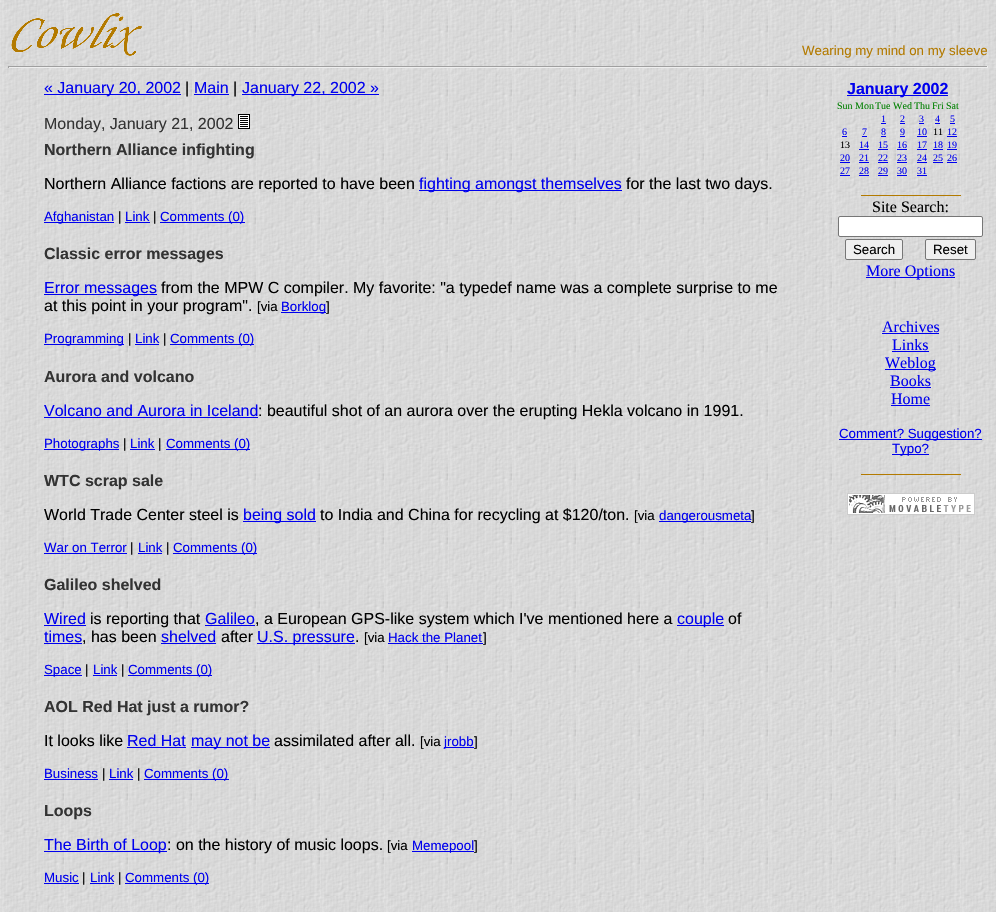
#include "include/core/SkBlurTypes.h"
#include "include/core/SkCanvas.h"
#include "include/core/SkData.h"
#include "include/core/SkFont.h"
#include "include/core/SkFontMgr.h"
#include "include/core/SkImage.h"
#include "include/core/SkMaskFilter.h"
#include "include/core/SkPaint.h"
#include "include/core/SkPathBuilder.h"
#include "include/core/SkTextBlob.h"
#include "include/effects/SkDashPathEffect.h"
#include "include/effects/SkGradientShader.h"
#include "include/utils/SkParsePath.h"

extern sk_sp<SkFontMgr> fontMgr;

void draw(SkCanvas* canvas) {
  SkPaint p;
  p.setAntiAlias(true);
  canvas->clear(SK_ColorWHITE);
  canvas->drawImageRect(SkImages::DeferredFromEncodedData(SkData::MakeFromFileName("images/1.png")), SkRect::MakeLTRB(0, 0, 996, 912), SkSamplingOptions());
  canvas->drawImageRect(SkImages::DeferredFromEncodedData(SkData::MakeFromFileName("images/2.png")), SkRect::MakeLTRB(11, 13, 142, 56), SkSamplingOptions());
  p.setColor(SkColorSetRGB(159, 159, 159));
  canvas->drawRect(SkRect::MakeLTRB(8, 66, 988, 67), p);
  p.setColor(SkColorSetRGB(238, 238, 238));
  canvas->drawRect(SkRect::MakeLTRB(987, 66, 988, 68), p);
  canvas->drawRect(SkRect::MakeLTRB(8, 67, 988, 68), p);
  p.setColor(SkColorSetRGB(159, 159, 159));
  canvas->drawRect(SkRect::MakeLTRB(8, 66, 9, 68), p);
  p.setColor(SkColorSetRGB(0, 0, 238));
  canvas->drawRect(SkRect::MakeLTRB(44, 94, 181, 95), p);
  canvas->drawRect(SkRect::MakeLTRB(194, 94, 229, 95), p);
  canvas->drawRect(SkRect::MakeLTRB(242, 94, 379, 95), p);
  canvas->drawImageRect(SkImages::DeferredFromEncodedData(SkData::MakeFromFileName("images/3.png")), SkRect::MakeLTRB(238, 114, 250, 129), SkSamplingOptions());
  canvas->drawRect(SkRect::MakeLTRB(419, 190, 622, 191), p);
  canvas->drawRect(SkRect::MakeLTRB(44, 222, 114, 223), p);
  canvas->drawRect(SkRect::MakeLTRB(125, 222, 150, 223), p);
  canvas->drawRect(SkRect::MakeLTRB(160, 222, 245, 223), p);
  canvas->drawRect(SkRect::MakeLTRB(44, 294, 157, 295), p);
  canvas->drawRect(SkRect::MakeLTRB(281, 312, 326, 313), p);
  canvas->drawRect(SkRect::MakeLTRB(44, 344, 124, 345), p);
  canvas->drawRect(SkRect::MakeLTRB(135, 344, 159, 345), p);
  canvas->drawRect(SkRect::MakeLTRB(170, 344, 254, 345), p);
  canvas->drawRect(SkRect::MakeLTRB(44, 417, 258, 418), p);
  canvas->drawRect(SkRect::MakeLTRB(44, 449, 119, 450), p);
  canvas->drawRect(SkRect::MakeLTRB(130, 449, 155, 450), p);
  canvas->drawRect(SkRect::MakeLTRB(166, 449, 250, 450), p);
  canvas->drawRect(SkRect::MakeLTRB(243, 521, 316, 522), p);
  canvas->drawRect(SkRect::MakeLTRB(659, 521, 751, 522), p);
  canvas->drawRect(SkRect::MakeLTRB(44, 553, 127, 554), p);
  canvas->drawRect(SkRect::MakeLTRB(138, 553, 162, 554), p);
  canvas->drawRect(SkRect::MakeLTRB(173, 553, 257, 554), p);
  canvas->drawRect(SkRect::MakeLTRB(44, 625, 86, 626), p);
  canvas->drawRect(SkRect::MakeLTRB(205, 625, 255, 626), p);
  canvas->drawRect(SkRect::MakeLTRB(677, 625, 724, 626), p);
  canvas->drawRect(SkRect::MakeLTRB(44, 643, 82, 644), p);
  canvas->drawRect(SkRect::MakeLTRB(161, 643, 216, 644), p);
  canvas->drawRect(SkRect::MakeLTRB(257, 643, 355, 644), p);
  canvas->drawRect(SkRect::MakeLTRB(388, 643, 483, 644), p);
  canvas->drawRect(SkRect::MakeLTRB(44, 675, 82, 676), p);
  canvas->drawRect(SkRect::MakeLTRB(93, 675, 117, 676), p);
  canvas->drawRect(SkRect::MakeLTRB(128, 675, 212, 676), p);
  canvas->drawRect(SkRect::MakeLTRB(127, 747, 186, 748), p);
  canvas->drawRect(SkRect::MakeLTRB(191, 747, 270, 748), p);
  canvas->drawRect(SkRect::MakeLTRB(444, 747, 474, 748), p);
  canvas->drawRect(SkRect::MakeLTRB(44, 779, 98, 780), p);
  canvas->drawRect(SkRect::MakeLTRB(109, 779, 133, 780), p);
  canvas->drawRect(SkRect::MakeLTRB(144, 779, 229, 780), p);
  canvas->drawRect(SkRect::MakeLTRB(44, 851, 167, 852), p);
  canvas->drawRect(SkRect::MakeLTRB(412, 851, 474, 852), p);
  canvas->drawRect(SkRect::MakeLTRB(44, 883, 79, 884), p);
  canvas->drawRect(SkRect::MakeLTRB(90, 883, 114, 884), p);
  canvas->drawRect(SkRect::MakeLTRB(125, 883, 209, 884), p);
  canvas->drawRect(SkRect::MakeLTRB(847, 95, 948, 96), p);
  canvas->drawRect(SkRect::MakeLTRB(881, 123, 886, 124), p);
  canvas->drawRect(SkRect::MakeLTRB(900, 123, 905, 124), p);
  canvas->drawRect(SkRect::MakeLTRB(919, 123, 924, 124), p);
  canvas->drawRect(SkRect::MakeLTRB(935, 123, 940, 124), p);
  canvas->drawRect(SkRect::MakeLTRB(950, 123, 955, 124), p);
  canvas->drawRect(SkRect::MakeLTRB(842, 136, 847, 137), p);
  canvas->drawRect(SkRect::MakeLTRB(862, 136, 867, 137), p);
  canvas->drawRect(SkRect::MakeLTRB(881, 136, 886, 137), p);
  canvas->drawRect(SkRect::MakeLTRB(900, 136, 905, 137), p);
  canvas->drawRect(SkRect::MakeLTRB(917, 136, 927, 137), p);
  canvas->drawRect(SkRect::MakeLTRB(947, 136, 957, 137), p);
  canvas->drawRect(SkRect::MakeLTRB(859, 149, 869, 150), p);
  canvas->drawRect(SkRect::MakeLTRB(878, 149, 888, 150), p);
  canvas->drawRect(SkRect::MakeLTRB(897, 149, 907, 150), p);
  canvas->drawRect(SkRect::MakeLTRB(917, 149, 927, 150), p);
  canvas->drawRect(SkRect::MakeLTRB(933, 149, 943, 150), p);
  canvas->drawRect(SkRect::MakeLTRB(947, 149, 957, 150), p);
  canvas->drawRect(SkRect::MakeLTRB(840, 162, 850, 163), p);
  canvas->drawRect(SkRect::MakeLTRB(859, 162, 869, 163), p);
  canvas->drawRect(SkRect::MakeLTRB(878, 162, 888, 163), p);
  canvas->drawRect(SkRect::MakeLTRB(897, 162, 907, 163), p);
  canvas->drawRect(SkRect::MakeLTRB(917, 162, 927, 163), p);
  canvas->drawRect(SkRect::MakeLTRB(933, 162, 943, 163), p);
  canvas->drawRect(SkRect::MakeLTRB(947, 162, 957, 163), p);
  canvas->drawRect(SkRect::MakeLTRB(840, 175, 850, 176), p);
  canvas->drawRect(SkRect::MakeLTRB(859, 175, 869, 176), p);
  canvas->drawRect(SkRect::MakeLTRB(878, 175, 888, 176), p);
  canvas->drawRect(SkRect::MakeLTRB(897, 175, 907, 176), p);
  canvas->drawRect(SkRect::MakeLTRB(917, 175, 927, 176), p);
  p.setColor(SkColorSetRGB(179, 122, 0));
  canvas->drawRect(SkRect::MakeLTRB(861, 195, 961, 196), p);
  p.setColor(SK_ColorWHITE);
  canvas->drawRoundRect(SkRect::MakeLTRB(838.5f, 216.5f, 982.5f, 236.5f), 1.5f, 1.5f, p);
  p.setStyle(SkPaint::kStroke_Style);
  p.setStrokeWidth(1);
  p.setColor(SkColorSetRGB(118, 118, 118));
  canvas->drawRoundRect(SkRect::MakeLTRB(838.5f, 216.5f, 982.5f, 236.5f), 1.5f, 1.5f, p);
  p.setStyle(SkPaint::kFill_Style);
  p.setColor(SkColorSetRGB(239, 239, 239));
  canvas->drawRoundRect(SkRect::MakeLTRB(845.5f, 239.5f, 902.5f, 259.5f), 1.5f, 1.5f, p);
  p.setStyle(SkPaint::kStroke_Style);
  p.setColor(SkColorSetRGB(118, 118, 118));
  canvas->drawRoundRect(SkRect::MakeLTRB(845.5f, 239.5f, 902.5f, 259.5f), 1.5f, 1.5f, p);
  p.setStyle(SkPaint::kFill_Style);
  p.setColor(SkColorSetRGB(239, 239, 239));
  canvas->drawRoundRect(SkRect::MakeLTRB(925.5f, 239.5f, 975.5f, 259.5f), 1.5f, 1.5f, p);
  p.setStyle(SkPaint::kStroke_Style);
  p.setColor(SkColorSetRGB(118, 118, 118));
  canvas->drawRoundRect(SkRect::MakeLTRB(925.5f, 239.5f, 975.5f, 259.5f), 1.5f, 1.5f, p);
  p.setStyle(SkPaint::kFill_Style);
  p.setColor(SkColorSetRGB(0, 0, 238));
  canvas->drawRect(SkRect::MakeLTRB(866, 277, 955, 278), p);
  canvas->drawRect(SkRect::MakeLTRB(882, 333, 939, 334), p);
  canvas->drawRect(SkRect::MakeLTRB(892, 351, 929, 352), p);
  canvas->drawRect(SkRect::MakeLTRB(885, 369, 936, 370), p);
  canvas->drawRect(SkRect::MakeLTRB(890, 387, 931, 388), p);
  canvas->drawRect(SkRect::MakeLTRB(891, 405, 930, 406), p);
  canvas->drawRect(SkRect::MakeLTRB(839, 439, 982, 440), p);
  canvas->drawRect(SkRect::MakeLTRB(892, 454, 929, 455), p);
  p.setColor(SkColorSetRGB(179, 122, 0));
  canvas->drawRect(SkRect::MakeLTRB(861, 474, 961, 475), p);
  canvas->drawImageRect(SkImages::DeferredFromEncodedData(SkData::MakeFromFileName("images/4.png")), SkRect::MakeLTRB(847, 493, 975, 515), SkSamplingOptions());
  SkFont font1(fontMgr->matchFamilyStyle("Liberation Sans", SkFontStyle::Normal()), 13.3f);
  font1.setSubpixel(true);
  canvas->drawString("Wearing my mind on my sleeve", 802, 55, font1, p);
  SkFont font2(fontMgr->matchFamilyStyle("Liberation Sans", SkFontStyle::Normal()), 16);
  font2.setSubpixel(true);
  p.setColor(SkColorSetRGB(0, 0, 238));
  canvas->drawString("« January 20, 2002", 44, 93, font2, p);
  p.setColor(SK_ColorBLACK);
  canvas->drawString("|", 185, 93, font2, p);
  p.setColor(SkColorSetRGB(0, 0, 238));
  canvas->drawString("Main", 194, 93, font2, p);
  p.setColor(SK_ColorBLACK);
  canvas->drawString("|", 233, 93, font2, p);
  p.setColor(SkColorSetRGB(0, 0, 238));
  canvas->drawString("January 22, 2002 »", 242, 93, font2, p);
  p.setColor(SkColorSetRGB(51, 51, 51));
  canvas->drawString("Monday, January 21, 2002", 44, 129, font2, p);
  SkFont font3(fontMgr->matchFamilyStyle("Liberation Sans", SkFontStyle::Bold()), 16);
  font3.setSubpixel(true);
  canvas->drawString("Northern Alliance infighting", 44, 155, font3, p);
  p.setColor(SK_ColorBLACK);
  canvas->drawString("Northern Alliance factions are reported to have been", 44, 189, font2, p);
  p.setColor(SkColorSetRGB(0, 0, 238));
  canvas->drawString("fighting amongst themselves", 419, 189, font2, p);
  p.setColor(SK_ColorBLACK);
  canvas->drawString("for the last two days.", 626, 189, font2, p);
  p.setColor(SkColorSetRGB(0, 0, 238));
  canvas->drawString("Afghanistan", 44, 221, font1, p);
  p.setColor(SK_ColorBLACK);
  canvas->drawString("|", 118, 221, font1, p);
  p.setColor(SkColorSetRGB(0, 0, 238));
  canvas->drawString("Link", 125, 221, font1, p);
  p.setColor(SK_ColorBLACK);
  canvas->drawString("|", 153, 221, font1, p);
  p.setColor(SkColorSetRGB(0, 0, 238));
  canvas->drawString("Comments (0)", 160, 221, font1, p);
  p.setColor(SkColorSetRGB(51, 51, 51));
  canvas->drawString("Classic error messages", 44, 259, font3, p);
  p.setColor(SkColorSetRGB(0, 0, 238));
  canvas->drawString("Error messages", 44, 293, font2, p);
  p.setColor(SK_ColorBLACK);
  canvas->drawString("from the MPW C compiler. My favorite: \"a typedef name was a complete surprise to me", 161, 293, font2, p);
  canvas->drawString("at this point in your program\".", 44, 311, font2, p);
  canvas->drawString("[via", 257, 311, font1, p);
  p.setColor(SkColorSetRGB(0, 0, 238));
  canvas->drawString("Borklog", 281, 311, font1, p);
  p.setColor(SK_ColorBLACK);
  canvas->drawString("]", 326, 311, font1, p);
  p.setColor(SkColorSetRGB(0, 0, 238));
  canvas->drawString("Programming", 44, 343, font1, p);
  p.setColor(SK_ColorBLACK);
  canvas->drawString("|", 128, 343, font1, p);
  p.setColor(SkColorSetRGB(0, 0, 238));
  canvas->drawString("Link", 135, 343, font1, p);
  p.setColor(SK_ColorBLACK);
  canvas->drawString("|", 163, 343, font1, p);
  p.setColor(SkColorSetRGB(0, 0, 238));
  canvas->drawString("Comments (0)", 170, 343, font1, p);
  p.setColor(SkColorSetRGB(51, 51, 51));
  canvas->drawString("Aurora and volcano", 44, 382, font3, p);
  p.setColor(SkColorSetRGB(0, 0, 238));
  canvas->drawString("Volcano and Aurora in Iceland", 44, 416, font2, p);
  p.setColor(SK_ColorBLACK);
  canvas->drawString(": beautiful shot of an aurora over the erupting Hekla volcano in 1991.", 258, 416, font2, p);
  p.setColor(SkColorSetRGB(0, 0, 238));
  canvas->drawString("Photographs", 44, 448, font1, p);
  p.setColor(SK_ColorBLACK);
  canvas->drawString("|", 123, 448, font1, p);
  p.setColor(SkColorSetRGB(0, 0, 238));
  canvas->drawString("Link", 130, 448, font1, p);
  p.setColor(SK_ColorBLACK);
  canvas->drawString("|", 158, 448, font1, p);
  p.setColor(SkColorSetRGB(0, 0, 238));
  canvas->drawString("Comments (0)", 166, 448, font1, p);
  p.setColor(SkColorSetRGB(51, 51, 51));
  canvas->drawString("WTC scrap sale", 44, 486, font3, p);
  p.setColor(SK_ColorBLACK);
  canvas->drawString("World Trade Center steel is", 44, 520, font2, p);
  p.setColor(SkColorSetRGB(0, 0, 238));
  canvas->drawString("being sold", 243, 520, font2, p);
  p.setColor(SK_ColorBLACK);
  canvas->drawString("to India and China for recycling at $120/ton.", 320, 520, font2, p);
  canvas->drawString("[via", 634, 520, font1, p);
  p.setColor(SkColorSetRGB(0, 0, 238));
  canvas->drawString("dangerousmeta", 659, 520, font1, p);
  p.setColor(SK_ColorBLACK);
  canvas->drawString("]", 751, 520, font1, p);
  p.setColor(SkColorSetRGB(0, 0, 238));
  canvas->drawString("War on Terror", 44, 552, font1, p);
  p.setColor(SK_ColorBLACK);
  canvas->drawString("|", 130, 552, font1, p);
  p.setColor(SkColorSetRGB(0, 0, 238));
  canvas->drawString("Link", 138, 552, font1, p);
  p.setColor(SK_ColorBLACK);
  canvas->drawString("|", 166, 552, font1, p);
  p.setColor(SkColorSetRGB(0, 0, 238));
  canvas->drawString("Comments (0)", 173, 552, font1, p);
  p.setColor(SkColorSetRGB(51, 51, 51));
  canvas->drawString("Galileo shelved", 44, 590, font3, p);
  p.setColor(SkColorSetRGB(0, 0, 238));
  canvas->drawString("Wired", 44, 624, font2, p);
  p.setColor(SK_ColorBLACK);
  canvas->drawString("is reporting that", 90, 624, font2, p);
  p.setColor(SkColorSetRGB(0, 0, 238));
  canvas->drawString("Galileo", 205, 624, font2, p);
  p.setColor(SK_ColorBLACK);
  canvas->drawString(", a European GPS-like system which I've mentioned here a", 255, 624, font2, p);
  p.setColor(SkColorSetRGB(0, 0, 238));
  canvas->drawString("couple", 677, 624, font2, p);
  p.setColor(SK_ColorBLACK);
  canvas->drawString("of", 728, 624, font2, p);
  p.setColor(SkColorSetRGB(0, 0, 238));
  canvas->drawString("times", 44, 642, font2, p);
  p.setColor(SK_ColorBLACK);
  canvas->drawString(", has been", 82, 642, font2, p);
  p.setColor(SkColorSetRGB(0, 0, 238));
  canvas->drawString("shelved", 161, 642, font2, p);
  p.setColor(SK_ColorBLACK);
  canvas->drawString("after", 221, 642, font2, p);
  p.setColor(SkColorSetRGB(0, 0, 238));
  canvas->drawString("U.S. pressure", 257, 642, font2, p);
  p.setColor(SK_ColorBLACK);
  canvas->drawString(".", 355, 642, font2, p);
  canvas->drawString("[via", 364, 642, font1, p);
  p.setColor(SkColorSetRGB(0, 0, 238));
  canvas->drawString("Hack the Planet", 388, 642, font1, p);
  p.setColor(SK_ColorBLACK);
  canvas->drawString("]", 483, 642, font1, p);
  p.setColor(SkColorSetRGB(0, 0, 238));
  canvas->drawString("Space", 44, 674, font1, p);
  p.setColor(SK_ColorBLACK);
  canvas->drawString("|", 85, 674, font1, p);
  p.setColor(SkColorSetRGB(0, 0, 238));
  canvas->drawString("Link", 93, 674, font1, p);
  p.setColor(SK_ColorBLACK);
  canvas->drawString("|", 121, 674, font1, p);
  p.setColor(SkColorSetRGB(0, 0, 238));
  canvas->drawString("Comments (0)", 128, 674, font1, p);
  p.setColor(SkColorSetRGB(51, 51, 51));
  canvas->drawString("AOL Red Hat just a rumor?", 44, 712, font3, p);
  p.setColor(SK_ColorBLACK);
  canvas->drawString("It looks like", 44, 746, font2, p);
  p.setColor(SkColorSetRGB(0, 0, 238));
  canvas->drawString("Red Hat", 127, 746, font2, p);
  canvas->drawString("may not be", 191, 746, font2, p);
  p.setColor(SK_ColorBLACK);
  canvas->drawString("assimilated after all.", 274, 746, font2, p);
  canvas->drawString("[via", 420, 746, font1, p);
  p.setColor(SkColorSetRGB(0, 0, 238));
  canvas->drawString("jrobb", 444, 746, font1, p);
  p.setColor(SK_ColorBLACK);
  canvas->drawString("]", 474, 746, font1, p);
  p.setColor(SkColorSetRGB(0, 0, 238));
  canvas->drawString("Business", 44, 778, font1, p);
  p.setColor(SK_ColorBLACK);
  canvas->drawString("|", 102, 778, font1, p);
  p.setColor(SkColorSetRGB(0, 0, 238));
  canvas->drawString("Link", 109, 778, font1, p);
  p.setColor(SK_ColorBLACK);
  canvas->drawString("|", 137, 778, font1, p);
  p.setColor(SkColorSetRGB(0, 0, 238));
  canvas->drawString("Comments (0)", 144, 778, font1, p);
  p.setColor(SkColorSetRGB(51, 51, 51));
  canvas->drawString("Loops", 44, 816, font3, p);
  p.setColor(SkColorSetRGB(0, 0, 238));
  canvas->drawString("The Birth of Loop", 44, 850, font2, p);
  p.setColor(SK_ColorBLACK);
  canvas->drawString(": on the history of music loops.", 167, 850, font2, p);
  canvas->drawString("[via", 387, 850, font1, p);
  p.setColor(SkColorSetRGB(0, 0, 238));
  canvas->drawString("Memepool", 412, 850, font1, p);
  p.setColor(SK_ColorBLACK);
  canvas->drawString("]", 474, 850, font1, p);
  p.setColor(SkColorSetRGB(0, 0, 238));
  canvas->drawString("Music", 44, 882, font1, p);
  p.setColor(SK_ColorBLACK);
  canvas->drawString("|", 82, 882, font1, p);
  p.setColor(SkColorSetRGB(0, 0, 238));
  canvas->drawString("Link", 90, 882, font1, p);
  p.setColor(SK_ColorBLACK);
  canvas->drawString("|", 118, 882, font1, p);
  p.setColor(SkColorSetRGB(0, 0, 238));
  canvas->drawString("Comments (0)", 125, 882, font1, p);
  canvas->drawString("January 2002", 847, 94, font3, p);
  SkFont font4(fontMgr->matchFamilyStyle("Liberation Serif", SkFontStyle::Normal()), 10);
  font4.setSubpixel(true);
  p.setColor(SkColorSetRGB(0, 128, 0));
  canvas->drawString("Sun", 837, 109, font4, p);
  canvas->drawString("Mon", 855, 109, font4, p);
  canvas->drawString("Tue", 875, 109, font4, p);
  canvas->drawString("Wed", 893, 109, font4, p);
  canvas->drawString("Thu", 914, 109, font4, p);
  canvas->drawString("Fri", 932, 109, font4, p);
  canvas->drawString("Sat", 946, 109, font4, p);
  p.setColor(SkColorSetRGB(0, 0, 238));
  canvas->drawString("1", 881, 122, font4, p);
  canvas->drawString("2", 900, 122, font4, p);
  canvas->drawString("3", 919, 122, font4, p);
  canvas->drawString("4", 935, 122, font4, p);
  canvas->drawString("5", 950, 122, font4, p);
  canvas->drawString("6", 842, 135, font4, p);
  canvas->drawString("7", 862, 135, font4, p);
  canvas->drawString("8", 881, 135, font4, p);
  canvas->drawString("9", 900, 135, font4, p);
  canvas->drawString("10", 917, 135, font4, p);
  p.setColor(SK_ColorBLACK);
  canvas->drawString("11", 933, 135, font4, p);
  p.setColor(SkColorSetRGB(0, 0, 238));
  canvas->drawString("12", 947, 135, font4, p);
  p.setColor(SK_ColorBLACK);
  canvas->drawString("13", 840, 148, font4, p);
  p.setColor(SkColorSetRGB(0, 0, 238));
  canvas->drawString("14", 859, 148, font4, p);
  canvas->drawString("15", 878, 148, font4, p);
  canvas->drawString("16", 897, 148, font4, p);
  canvas->drawString("17", 917, 148, font4, p);
  canvas->drawString("18", 933, 148, font4, p);
  canvas->drawString("19", 947, 148, font4, p);
  canvas->drawString("20", 840, 161, font4, p);
  canvas->drawString("21", 859, 161, font4, p);
  canvas->drawString("22", 878, 161, font4, p);
  canvas->drawString("23", 897, 161, font4, p);
  canvas->drawString("24", 917, 161, font4, p);
  canvas->drawString("25", 933, 161, font4, p);
  canvas->drawString("26", 947, 161, font4, p);
  canvas->drawString("27", 840, 174, font4, p);
  canvas->drawString("28", 859, 174, font4, p);
  canvas->drawString("29", 878, 174, font4, p);
  canvas->drawString("30", 897, 174, font4, p);
  canvas->drawString("31", 917, 174, font4, p);
  SkFont font5(fontMgr->matchFamilyStyle("Liberation Serif", SkFontStyle::Normal()), 16);
  font5.setSubpixel(true);
  p.setColor(SK_ColorBLACK);
  canvas->drawString("Site Search:", 872, 212, font5, p);
  canvas->drawString("Search", 853, 254, font1, p);
  canvas->drawString("Reset", 933, 254, font1, p);
  p.setColor(SkColorSetRGB(0, 0, 238));
  canvas->drawString("More Options", 866, 276, font5, p);
  canvas->drawString("Archives", 882, 332, font5, p);
  canvas->drawString("Links", 892, 350, font5, p);
  canvas->drawString("Weblog", 885, 368, font5, p);
  canvas->drawString("Books", 890, 386, font5, p);
  canvas->drawString("Home", 891, 404, font5, p);
  canvas->drawString("Comment? Suggestion?", 839, 438, font1, p);
  canvas->drawString("Typo?", 892, 453, font1, p);
}
